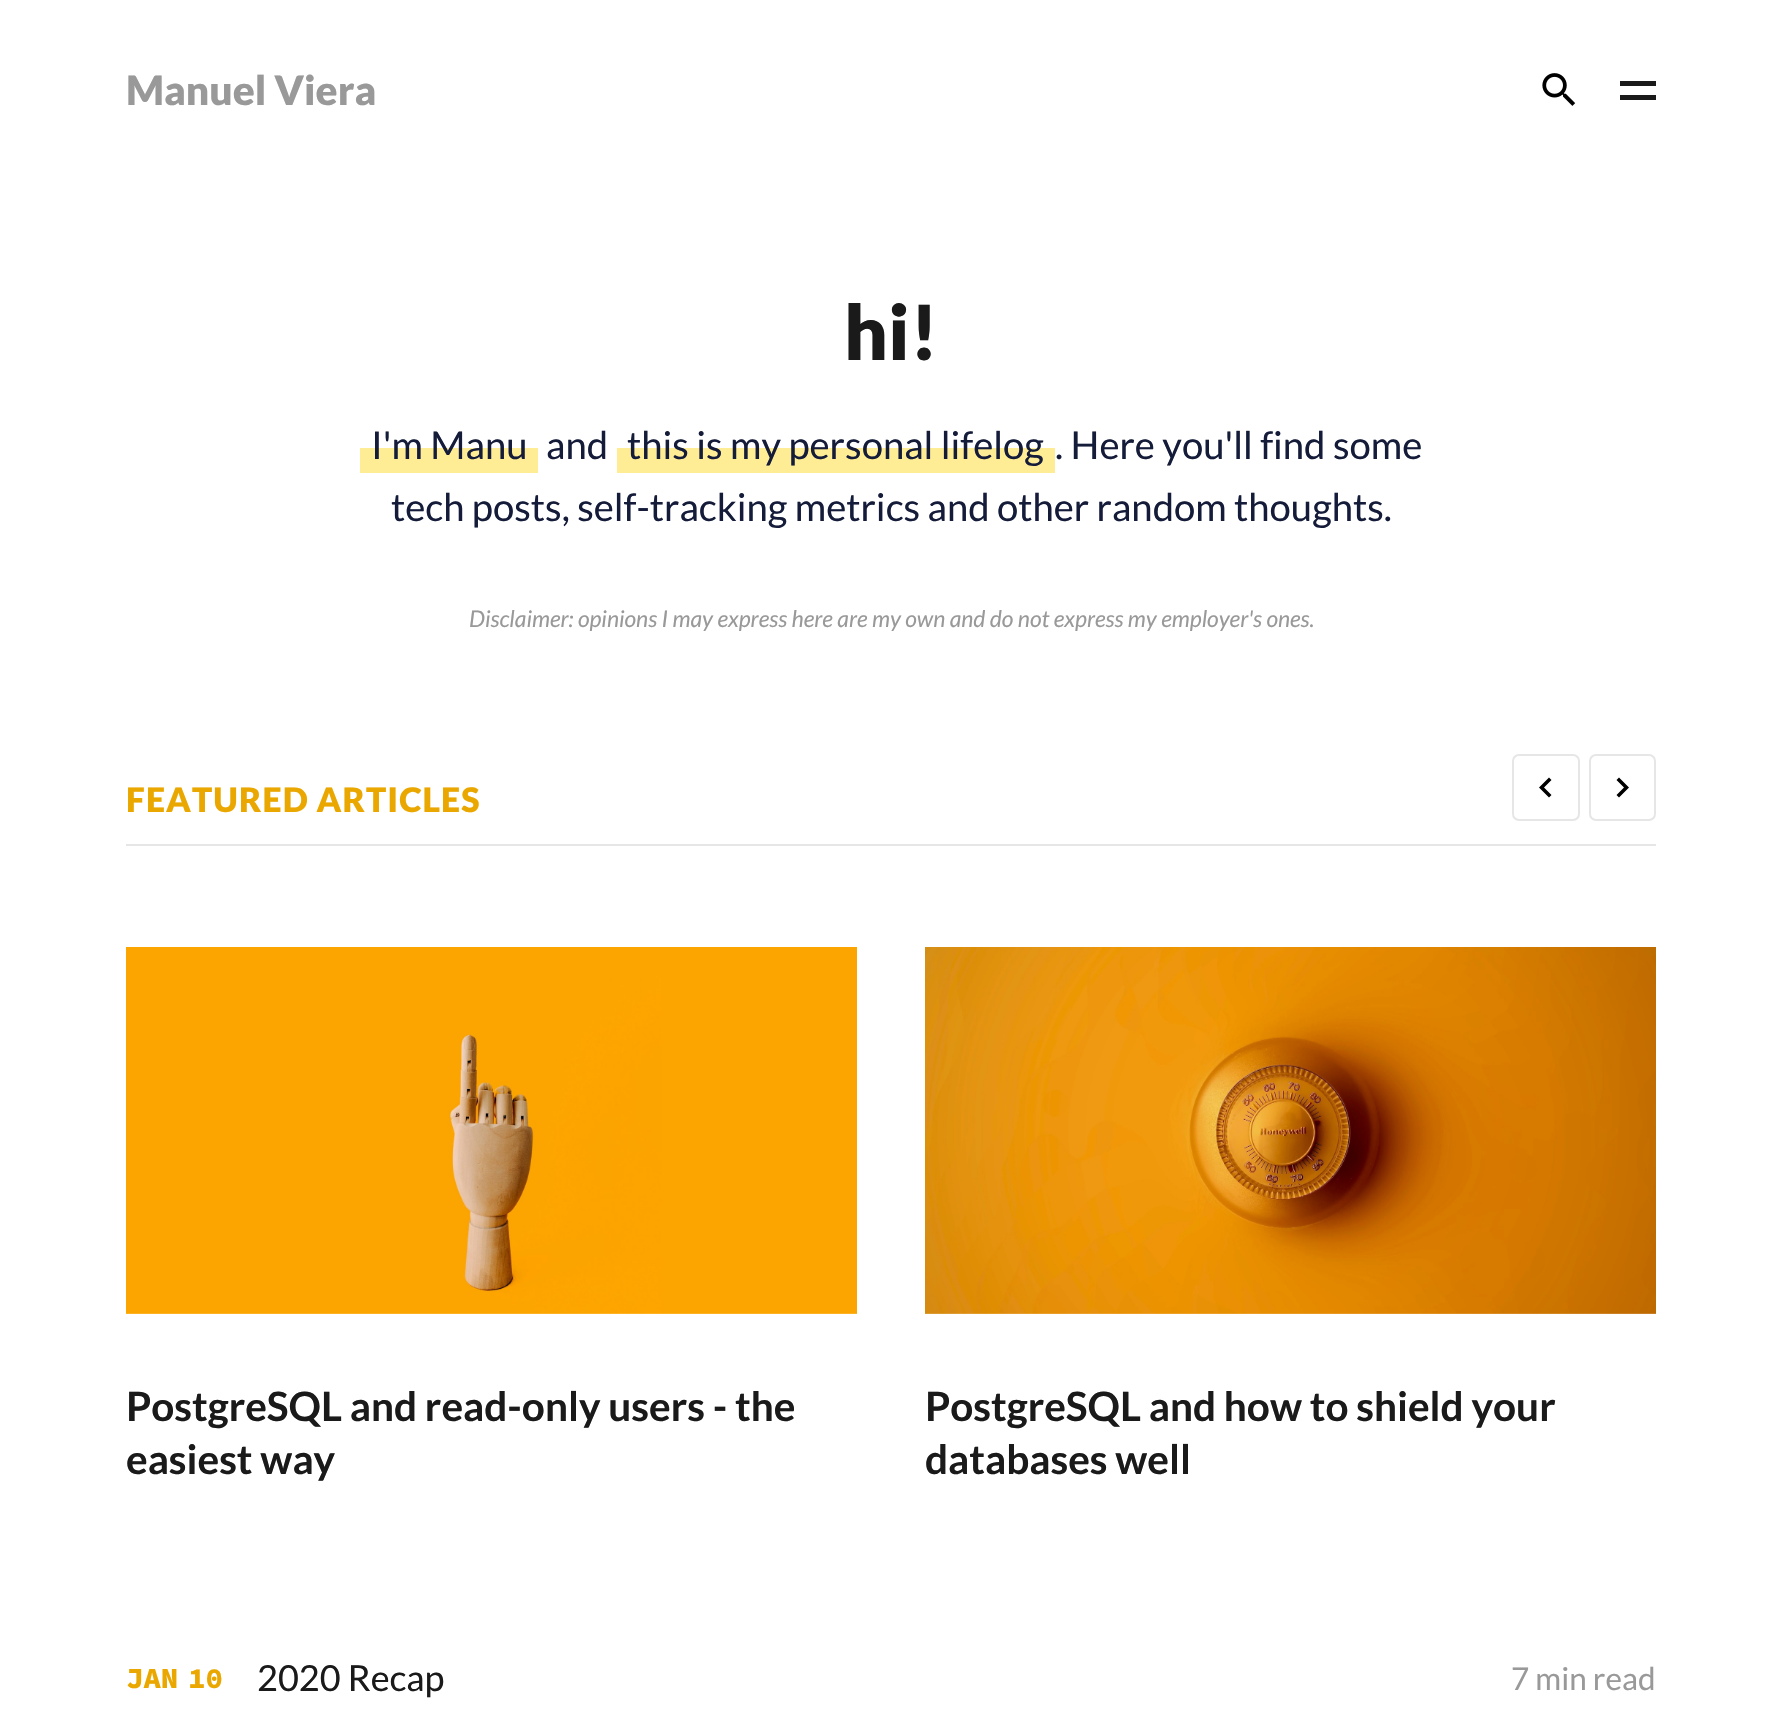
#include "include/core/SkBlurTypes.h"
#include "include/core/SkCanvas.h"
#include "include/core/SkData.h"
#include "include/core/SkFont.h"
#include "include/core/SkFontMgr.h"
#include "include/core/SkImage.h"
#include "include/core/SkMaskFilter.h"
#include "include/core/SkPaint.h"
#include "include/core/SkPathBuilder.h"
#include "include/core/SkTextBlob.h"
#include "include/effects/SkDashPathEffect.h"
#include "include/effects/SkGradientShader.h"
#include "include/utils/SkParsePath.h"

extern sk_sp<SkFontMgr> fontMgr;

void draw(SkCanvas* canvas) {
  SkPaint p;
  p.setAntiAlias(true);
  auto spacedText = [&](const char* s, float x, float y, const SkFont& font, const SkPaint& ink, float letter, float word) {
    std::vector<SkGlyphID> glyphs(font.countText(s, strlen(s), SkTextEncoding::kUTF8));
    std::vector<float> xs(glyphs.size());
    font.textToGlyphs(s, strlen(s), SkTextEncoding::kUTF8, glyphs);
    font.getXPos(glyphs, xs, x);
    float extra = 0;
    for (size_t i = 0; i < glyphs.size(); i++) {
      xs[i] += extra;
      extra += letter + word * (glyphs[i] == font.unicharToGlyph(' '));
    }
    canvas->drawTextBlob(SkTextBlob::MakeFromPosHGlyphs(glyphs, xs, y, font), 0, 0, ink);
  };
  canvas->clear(SK_ColorWHITE);
  canvas->drawImageRect(SkImages::DeferredFromEncodedData(SkData::MakeFromFileName("images/1.png")), SkRect::MakeLTRB(1542, 73, 1576, 106), SkSamplingOptions());
  p.setColor(SkColorSetRGB(26, 26, 26));
  canvas->drawRect(SkRect::MakeLTRB(1620, 81, 1656, 86), p);
  canvas->drawRect(SkRect::MakeLTRB(1620, 95, 1656, 100), p);
  p.setColor(SkColorSetRGB(255, 237, 149));
  canvas->drawRect(SkRect::MakeLTRB(360, 448, 538, 473), p);
  canvas->drawRect(SkRect::MakeLTRB(617, 448, 1055, 473), p);
  p.setColor(SkColorSetRGB(230, 230, 230));
  canvas->drawRect(SkRect::MakeLTRB(126, 844, 1656, 846), p);
  p.setStyle(SkPaint::kStroke_Style);
  p.setStrokeWidth(2);
  canvas->drawRoundRect(SkRect::MakeLTRB(1513, 755, 1579, 820), 6, 6, p);
  p.setStyle(SkPaint::kFill_Style);
  p.setColor(SK_ColorBLACK);
  canvas->drawPath(SkPathBuilder().moveTo(1551.5f, 795).lineTo(1544, 787.5f).lineTo(1551.5f, 780).lineTo(1549, 777.5f).lineTo(1539, 787.5f).lineTo(1549, 797.5f).close().detach(), p);
  p.setStyle(SkPaint::kStroke_Style);
  p.setColor(SkColorSetRGB(230, 230, 230));
  canvas->drawRoundRect(SkRect::MakeLTRB(1590, 755, 1655, 820), 6, 6, p);
  p.setStyle(SkPaint::kFill_Style);
  p.setColor(SK_ColorBLACK);
  canvas->drawPath(SkPathBuilder().moveTo(1616.5f, 795).lineTo(1624, 787.5f).lineTo(1616.5f, 780).lineTo(1619, 777.5f).lineTo(1629, 787.5f).lineTo(1619, 797.5f).close().detach(), p);
  canvas->drawImageRect(SkImages::DeferredFromEncodedData(SkData::MakeFromFileName("images/2.png")), SkRect::MakeLTRB(126, 947, 857, 1314), SkSamplingOptions());
  canvas->drawImageRect(SkImages::DeferredFromEncodedData(SkData::MakeFromFileName("images/3.png")), SkRect::MakeLTRB(925, 947, 1656, 1314), SkSamplingOptions());
  SkFont font1(fontMgr->matchFamilyStyle("Lato", SkFontStyle(900, SkFontStyle::kNormal_Width, SkFontStyle::kUpright_Slant)), 40.5f);
  font1.setSubpixel(true);
  p.setColor(SkColorSetRGB(153, 153, 153));
  canvas->drawString("Manuel Viera", 126, 105, font1, p);
  SkFont font2(fontMgr->matchFamilyStyle("Lato", SkFontStyle(900, SkFontStyle::kNormal_Width, SkFontStyle::kUpright_Slant)), 76);
  font2.setSubpixel(true);
  p.setColor(SkColorSetRGB(26, 26, 26));
  canvas->drawString("hi!", 844, 360, font2, p);
  SkFont font3(fontMgr->matchFamilyStyle("Lato", SkFontStyle::Normal()), 38.25f);
  font3.setSubpixel(true);
  p.setColor(SkColorSetRGB(20, 28, 58));
  canvas->drawString("I'm Manu", 371, 459, font3, p);
  canvas->drawString("and", 546, 459, font3, p);
  canvas->drawString("this is my personal lifelog", 627, 459, font3, p);
  canvas->drawString(". Here you'll find some", 1055, 459, font3, p);
  canvas->drawString("tech posts, self-tracking metrics and other random thoughts.", 391, 521, font3, p);
  SkFont font4(fontMgr->matchFamilyStyle("Lato", SkFontStyle::Italic()), 22.95f);
  font4.setSubpixel(true);
  p.setColor(SkColorSetRGB(153, 153, 153));
  canvas->drawString("Disclaimer: opinions I may express here are my own and do not express my employer's ones.", 469, 627, font4, p);
  SkFont font5(fontMgr->matchFamilyStyle("Lato", SkFontStyle(900, SkFontStyle::kNormal_Width, SkFontStyle::kUpright_Slant)), 33.75f);
  font5.setSubpixel(true);
  p.setColor(SkColorSetRGB(234, 167, 0));
  spacedText("FEATURED ARTICLES", 126, 812, font5, p, 1.1f, 0);
  SkFont font6(fontMgr->matchFamilyStyle("Lato", SkFontStyle::Bold()), 40.5f);
  font6.setSubpixel(true);
  p.setColor(SkColorSetRGB(26, 26, 26));
  canvas->drawString("PostgreSQL and read-only users - the", 126, 1421, font6, p);
  canvas->drawString("easiest way", 126, 1474, font6, p);
  canvas->drawString("PostgreSQL and how to shield your", 925, 1421, font6, p);
  canvas->drawString("databases well", 925, 1474, font6, p);
  SkFont font7(fontMgr->matchFamilyStyle("Source Code Pro", SkFontStyle(800, SkFontStyle::kNormal_Width, SkFontStyle::kUpright_Slant)), 29);
  font7.setSubpixel(true);
  p.setColor(SkColorSetRGB(234, 167, 0));
  canvas->drawString("JAN", 126, 1688, font7, p);
  canvas->drawString("10", 188, 1688, font7, p);
  SkFont font8(fontMgr->matchFamilyStyle("Lato", SkFontStyle::Normal()), 36);
  font8.setSubpixel(true);
  p.setColor(SkColorSetRGB(26, 26, 26));
  canvas->drawString("2020 Recap", 257, 1691, font8, p);
  SkFont font9(fontMgr->matchFamilyStyle("Lato", SkFontStyle::Normal()), 31.5f);
  font9.setSubpixel(true);
  p.setColor(SkColorSetRGB(153, 153, 153));
  canvas->drawString("7 min read", 1511, 1690, font9, p);
}
